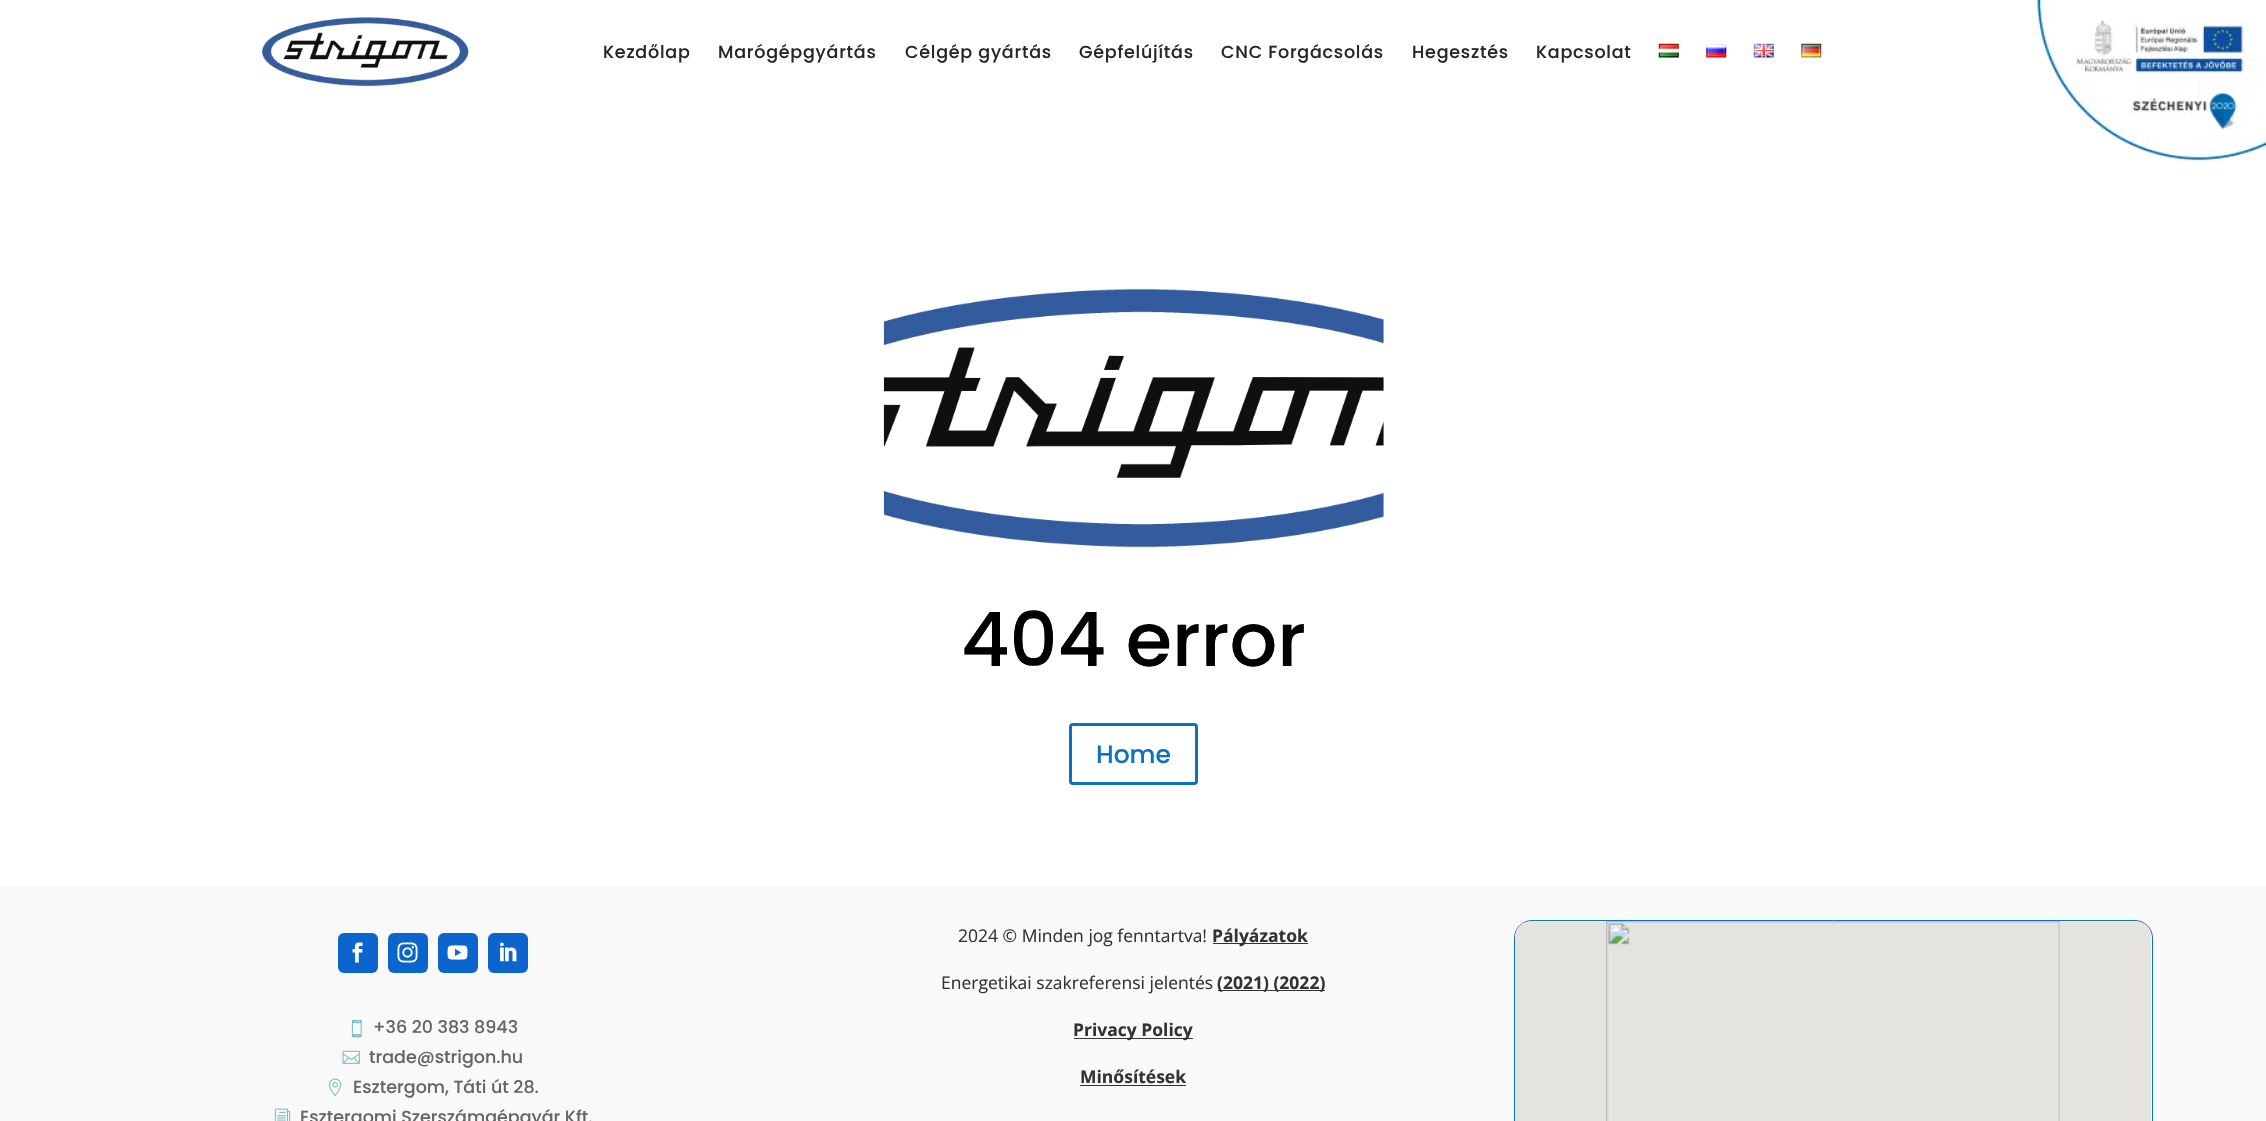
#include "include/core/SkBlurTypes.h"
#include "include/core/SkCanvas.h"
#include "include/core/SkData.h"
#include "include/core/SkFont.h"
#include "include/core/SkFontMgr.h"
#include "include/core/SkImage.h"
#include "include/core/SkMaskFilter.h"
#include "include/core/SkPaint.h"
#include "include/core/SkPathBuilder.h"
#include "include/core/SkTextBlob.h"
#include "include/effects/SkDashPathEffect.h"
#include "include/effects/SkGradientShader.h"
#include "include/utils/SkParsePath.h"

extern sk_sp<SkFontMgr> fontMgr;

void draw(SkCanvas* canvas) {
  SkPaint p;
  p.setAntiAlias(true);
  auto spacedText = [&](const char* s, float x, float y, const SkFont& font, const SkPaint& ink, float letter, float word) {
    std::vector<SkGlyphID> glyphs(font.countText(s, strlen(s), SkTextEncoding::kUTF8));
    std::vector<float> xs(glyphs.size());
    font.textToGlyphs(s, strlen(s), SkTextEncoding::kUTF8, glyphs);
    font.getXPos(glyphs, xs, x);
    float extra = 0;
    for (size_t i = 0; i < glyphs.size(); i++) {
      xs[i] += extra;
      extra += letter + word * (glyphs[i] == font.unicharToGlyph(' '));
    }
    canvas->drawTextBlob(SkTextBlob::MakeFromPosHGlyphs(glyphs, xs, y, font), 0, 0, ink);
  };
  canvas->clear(SK_ColorWHITE);
  canvas->drawImageRect(SkImages::DeferredFromEncodedData(SkData::MakeFromFileName("images/1.png")), SkRect::MakeLTRB(261, 17, 469, 86), SkSamplingOptions());
  canvas->drawImageRect(SkImages::DeferredFromEncodedData(SkData::MakeFromFileName("images/2.png")), SkRect::MakeLTRB(1658, 43, 1679, 58), SkSamplingOptions());
  canvas->drawImageRect(SkImages::DeferredFromEncodedData(SkData::MakeFromFileName("images/3.png")), SkRect::MakeLTRB(1706, 43, 1727, 58), SkSamplingOptions());
  canvas->drawImageRect(SkImages::DeferredFromEncodedData(SkData::MakeFromFileName("images/4.png")), SkRect::MakeLTRB(1753, 43, 1774, 58), SkSamplingOptions());
  canvas->drawImageRect(SkImages::DeferredFromEncodedData(SkData::MakeFromFileName("images/5.png")), SkRect::MakeLTRB(1801, 43, 1822, 58), SkSamplingOptions());
  canvas->drawImageRect(SkImages::DeferredFromEncodedData(SkData::MakeFromFileName("images/6.png")), SkRect::MakeLTRB(2037, 0, 2266, 161), SkSamplingOptions());
  canvas->drawImageRect(SkImages::DeferredFromEncodedData(SkData::MakeFromFileName("images/7.png")), SkRect::MakeLTRB(883, 288, 1384, 548), SkSamplingOptions());
  p.setStyle(SkPaint::kStroke_Style);
  p.setStrokeWidth(3);
  p.setColor(SkColorSetRGB(12, 113, 195));
  canvas->drawRoundRect(SkRect::MakeLTRB(1070.5f, 724.5f, 1196.5f, 783.5f), 2.5f, 2.5f, p);
  p.setStyle(SkPaint::kFill_Style);
  p.setColor(SkColorSetRGB(249, 249, 249));
  canvas->drawRect(SkRect::MakeLTRB(0, 886, 2266, 1121), p);
  p.setColor(SkColorSetRGB(12, 101, 204));
  canvas->drawRoundRect(SkRect::MakeLTRB(338, 933, 378, 973), 6, 6, p);
  canvas->drawImageRect(SkImages::DeferredFromEncodedData(SkData::MakeFromFileName("images/8.png")), SkRect::MakeLTRB(352, 942, 363, 963), SkSamplingOptions());
  canvas->drawRoundRect(SkRect::MakeLTRB(388, 933, 428, 973), 6, 6, p);
  canvas->drawImageRect(SkImages::DeferredFromEncodedData(SkData::MakeFromFileName("images/9.png")), SkRect::MakeLTRB(397, 942, 418, 963), SkSamplingOptions());
  canvas->drawRoundRect(SkRect::MakeLTRB(438, 933, 478, 973), 6, 6, p);
  canvas->drawImageRect(SkImages::DeferredFromEncodedData(SkData::MakeFromFileName("images/10.png")), SkRect::MakeLTRB(447, 945, 468, 960), SkSamplingOptions());
  canvas->drawRoundRect(SkRect::MakeLTRB(488, 933, 528, 973), 6, 6, p);
  canvas->drawImageRect(SkImages::DeferredFromEncodedData(SkData::MakeFromFileName("images/11.png")), SkRect::MakeLTRB(500, 942, 517, 962), SkSamplingOptions());
  canvas->drawImageRect(SkImages::DeferredFromEncodedData(SkData::MakeFromFileName("images/12.png")), SkRect::MakeLTRB(351, 1019, 362, 1038), SkSamplingOptions());
  canvas->drawImageRect(SkImages::DeferredFromEncodedData(SkData::MakeFromFileName("images/13.png")), SkRect::MakeLTRB(342, 1050, 360, 1064), SkSamplingOptions());
  canvas->drawImageRect(SkImages::DeferredFromEncodedData(SkData::MakeFromFileName("images/14.png")), SkRect::MakeLTRB(329, 1078, 342, 1096), SkSamplingOptions());
  canvas->drawImageRect(SkImages::DeferredFromEncodedData(SkData::MakeFromFileName("images/15.png")), SkRect::MakeLTRB(274, 1108, 291, 1121), SkSamplingOptions());
  p.setColor(SkColorSetRGB(51, 51, 51));
  canvas->drawRect(SkRect::MakeLTRB(1213, 943, 1308, 944), p);
  canvas->drawRect(SkRect::MakeLTRB(1218, 990, 1325, 991), p);
  canvas->drawRect(SkRect::MakeLTRB(1074, 1038, 1193, 1039), p);
  canvas->drawRect(SkRect::MakeLTRB(1080, 1085, 1186, 1086), p);
  p.setStyle(SkPaint::kStroke_Style);
  p.setStrokeWidth(1);
  p.setColor(SkColorSetRGB(12, 113, 195));
  canvas->drawRoundRect(SkRect::MakeLTRB(1514.5f, 920.5f, 2152.5f, 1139.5f), 17.5f, 17.5f, p);
  canvas->drawImageRect(SkImages::DeferredFromEncodedData(SkData::MakeFromFileName("images/16.png")), SkRect::MakeLTRB(1515, 921, 2151, 1121), SkSamplingOptions());
  SkFont font1(fontMgr->matchFamilyStyle("Poppins", SkFontStyle(500, SkFontStyle::kNormal_Width, SkFontStyle::kUpright_Slant)), 17.5f);
  font1.setSubpixel(true);
  p.setStyle(SkPaint::kFill_Style);
  p.setColor(SkColorSetRGB(38, 38, 38));
  spacedText("Kezdőlap", 603, 58, font1, p, 0.75f, 0);
  spacedText("Marógépgyártás", 718, 58, font1, p, 0.75f, 0);
  spacedText("Célgép gyártás", 905, 58, font1, p, 0.75f, 0);
  spacedText("Gépfelújítás", 1079, 58, font1, p, 0.75f, 0);
  spacedText("CNC Forgácsolás", 1221, 58, font1, p, 0.75f, 0);
  spacedText("Hegesztés", 1412, 58, font1, p, 0.75f, 0);
  spacedText("Kapcsolat", 1536, 58, font1, p, 0.75f, 0);
  SkFont font2(fontMgr->matchFamilyStyle("Poppins", SkFontStyle(500, SkFontStyle::kNormal_Width, SkFontStyle::kUpright_Slant)), 75);
  font2.setSubpixel(true);
  p.setColor(SK_ColorBLACK);
  canvas->drawString("404 error", 961, 666, font2, p);
  SkFont font3(fontMgr->matchFamilyStyle("Poppins", SkFontStyle(500, SkFontStyle::kNormal_Width, SkFontStyle::kUpright_Slant)), 25);
  font3.setSubpixel(true);
  p.setColor(SkColorSetRGB(12, 113, 195));
  canvas->drawString("Home", 1096, 763, font3, p);
  p.setColor(SkColorSetRGB(102, 102, 102));
  canvas->drawString("+36 20 383 8943", 373, 1033, font1, p);
  canvas->drawString("trade@strigon.hu", 369, 1063, font1, p);
  canvas->drawString("Esztergom, Táti út 28.", 353, 1093, font1, p);
  canvas->drawString("Esztergomi Szerszámgépgyár Kft.", 300, 1123, font1, p);
  SkFont font4(fontMgr->matchFamilyStyle("Open Sans", SkFontStyle::Normal()), 17.5f);
  font4.setSubpixel(true);
  p.setColor(SkColorSetRGB(51, 51, 51));
  canvas->drawString("2024 © Minden jog fenntartva!", 958, 942, font4, p);
  SkFont font5(fontMgr->matchFamilyStyle("Open Sans", SkFontStyle::Bold()), 17.5f);
  font5.setSubpixel(true);
  canvas->drawString("Pályázatok", 1212, 942, font5, p);
  canvas->drawString("Energetikai szakreferensi jelentés", 941, 989, font4, p);
  canvas->drawString("(2021) (2022)", 1217, 989, font5, p);
  canvas->drawString("Privacy Policy", 1073, 1036, font5, p);
  canvas->drawString("Minősítések", 1080, 1083, font5, p);
}
